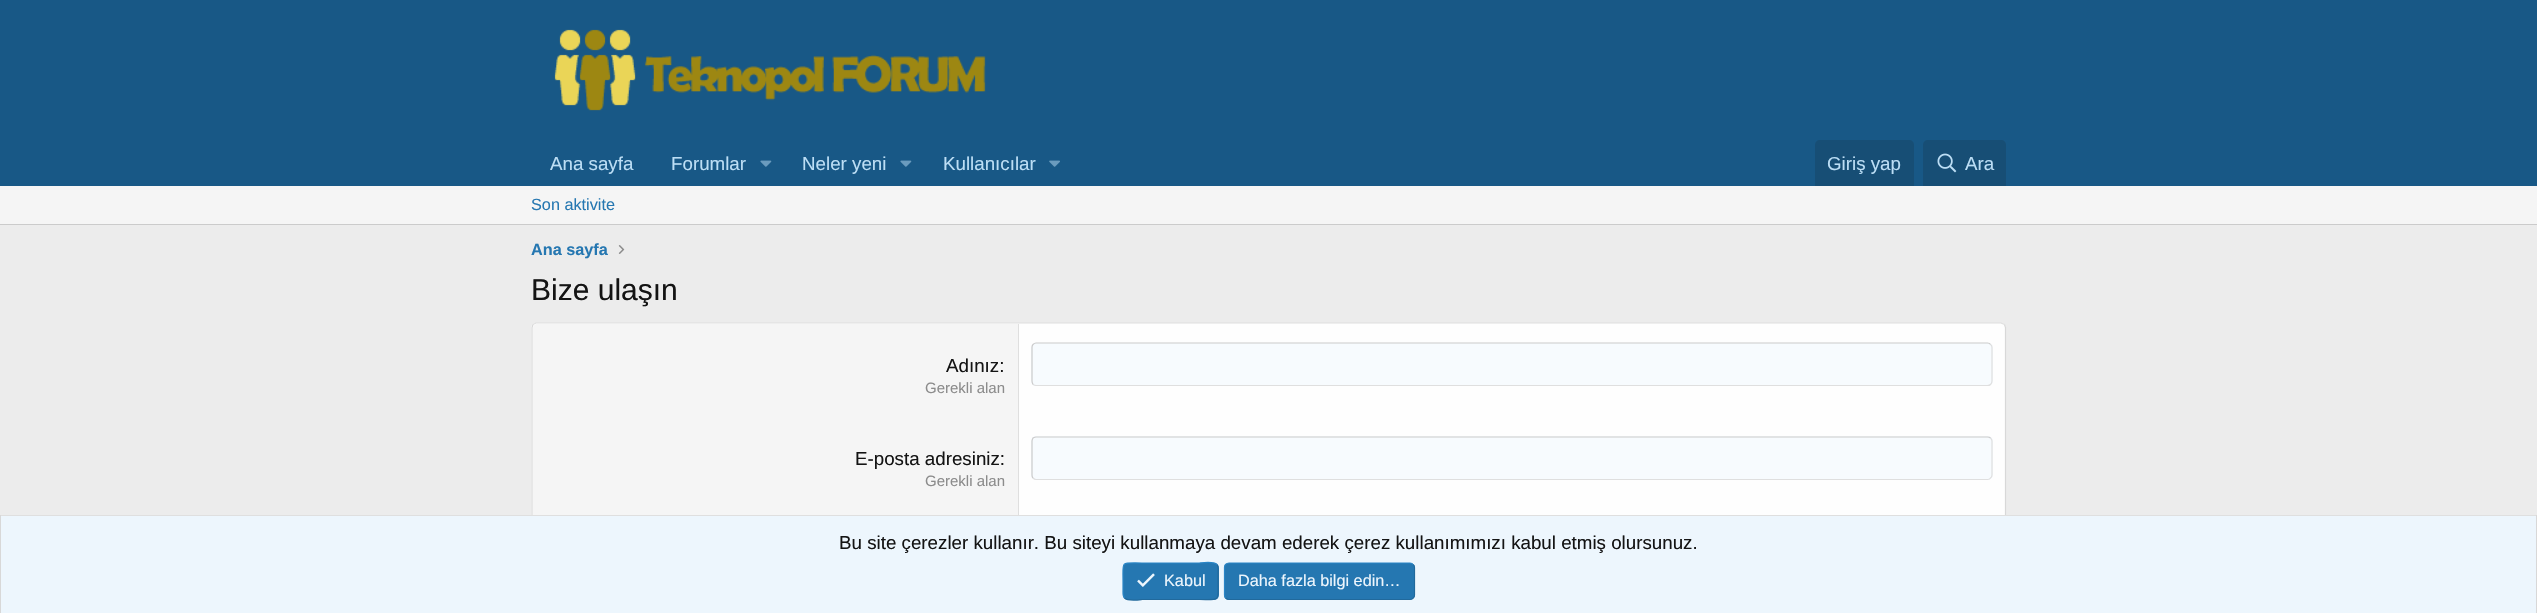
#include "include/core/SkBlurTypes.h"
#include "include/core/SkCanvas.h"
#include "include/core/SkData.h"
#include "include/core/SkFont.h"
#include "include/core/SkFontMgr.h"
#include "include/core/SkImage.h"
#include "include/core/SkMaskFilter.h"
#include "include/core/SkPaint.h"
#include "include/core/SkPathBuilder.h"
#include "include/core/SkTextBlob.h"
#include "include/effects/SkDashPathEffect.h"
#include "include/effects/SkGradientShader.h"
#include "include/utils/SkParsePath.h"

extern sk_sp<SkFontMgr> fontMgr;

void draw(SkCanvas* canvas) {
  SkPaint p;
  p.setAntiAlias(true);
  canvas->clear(SkColorSetRGB(236, 236, 236));
  p.setColor(SkColorSetRGB(24, 88, 134));
  canvas->drawRect(SkRect::MakeLTRB(0, 0, 2537, 186), p);
  canvas->drawImageRect(SkImages::DeferredFromEncodedData(SkData::MakeFromFileName("images/1.png")), SkRect::MakeLTRB(554, 29, 986, 111), SkSamplingOptions());
  canvas->drawImageRect(SkImages::DeferredFromEncodedData(SkData::MakeFromFileName("images/2.png")), SkRect::MakeLTRB(760, 160, 772, 167), SkSamplingOptions());
  canvas->drawImageRect(SkImages::DeferredFromEncodedData(SkData::MakeFromFileName("images/2.png")), SkRect::MakeLTRB(900, 160, 912, 167), SkSamplingOptions());
  canvas->drawImageRect(SkImages::DeferredFromEncodedData(SkData::MakeFromFileName("images/3.png")), SkRect::MakeLTRB(1049, 160, 1060, 167), SkSamplingOptions());
  p.setColor(SkColorSetRGB(23, 78, 117));
  canvas->drawPath(SkPathBuilder().moveTo(1820, 140).lineTo(1909, 140).cubicTo(1912, 140, 1914, 142, 1914, 145).lineTo(1914, 186).lineTo(1815, 186).lineTo(1815, 145).cubicTo(1815, 142, 1817, 140, 1820, 140).close().detach(), p);
  canvas->drawPath(SkPathBuilder().moveTo(1928, 140).lineTo(2001, 140).cubicTo(2004, 140, 2006, 142, 2006, 145).lineTo(2006, 186).lineTo(1923, 186).lineTo(1923, 145).cubicTo(1923, 142, 1925, 140, 1928, 140).close().detach(), p);
  canvas->drawImageRect(SkImages::DeferredFromEncodedData(SkData::MakeFromFileName("images/4.png")), SkRect::MakeLTRB(1937, 153, 1957, 173), SkSamplingOptions());
  p.setColor(SkColorSetRGB(245, 245, 245));
  canvas->drawRect(SkRect::MakeLTRB(0, 186, 2537, 224), p);
  p.setColor(SkColorSetRGB(203, 203, 203));
  canvas->drawRect(SkRect::MakeLTRB(0, 224, 2537, 225), p);
  canvas->drawImageRect(SkImages::DeferredFromEncodedData(SkData::MakeFromFileName("images/5.png")), SkRect::MakeLTRB(618, 245, 625, 254), SkSamplingOptions());
  p.setColor(SkColorSetRGB(254, 254, 254));
  canvas->drawRoundRect(SkRect::MakeLTRB(531, 323, 2006, 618), 5, 5, p);
  p.setStyle(SkPaint::kStroke_Style);
  p.setStrokeWidth(1.2f);
  p.setColor(SkColorSetRGB(223, 223, 223));
  canvas->drawPath(SkPathBuilder().moveTo(533, 324.5f).lineTo(536, 323).lineTo(2001, 323).lineTo(2004.5f, 324.5f).detach(), p);
  p.setColor(SkColorSetRGB(216, 216, 216));
  canvas->drawPath(SkPathBuilder().moveTo(2004.5f, 324.5f).lineTo(2005.5f, 327.5f).lineTo(2005.5f, 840).lineTo(2004.5f, 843).detach(), p);
  canvas->drawPath(SkPathBuilder().moveTo(533, 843).lineTo(532, 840).lineTo(532, 327.5f).lineTo(533, 324.5f).detach(), p);
  p.setStyle(SkPaint::kFill_Style);
  p.setColor(SkColorSetRGB(245, 245, 245));
  canvas->drawPath(SkPathBuilder().moveTo(537, 324).lineTo(1019, 324).lineTo(1019, 418).lineTo(533, 418).lineTo(533, 328).cubicTo(533, 326, 535, 324, 537, 324).close().detach(), p);
  p.setColor(SkColorSetRGB(223, 223, 223));
  canvas->drawRect(SkRect::MakeLTRB(1018, 324, 1019, 515), p);
  p.setColor(SkColorSetRGB(247, 251, 254));
  canvas->drawRoundRect(SkRect::MakeLTRB(1031, 343, 1993, 386), 5, 5, p);
  p.setStyle(SkPaint::kStroke_Style);
  p.setColor(SkColorSetRGB(223, 223, 223));
  canvas->drawPath(SkPathBuilder().moveTo(1990.5f, 344.5f).cubicTo(1991.5f, 345, 1992, 346.5f, 1992, 347.5f).lineTo(1992, 381).cubicTo(1992, 382.5f, 1991.5f, 383.5f, 1990.5f, 384.5f).cubicTo(1990, 385, 1988.5f, 385.5f, 1987.5f, 385.5f).lineTo(1036, 385.5f).cubicTo(1035, 385.5f, 1034, 385, 1033, 384.5f).detach(), p);
  p.setColor(SkColorSetRGB(203, 203, 203));
  canvas->drawPath(SkPathBuilder().moveTo(1033, 384.5f).cubicTo(1032.5f, 383.5f, 1032, 382.5f, 1032, 381).lineTo(1032, 347.5f).cubicTo(1032, 346.5f, 1032.5f, 345, 1033, 344.5f).cubicTo(1034, 343.5f, 1035, 343, 1036, 343).lineTo(1987.5f, 343).cubicTo(1988.5f, 343, 1990, 343.5f, 1990.5f, 344.5f).detach(), p);
  p.setStyle(SkPaint::kFill_Style);
  p.setColor(SkColorSetRGB(245, 245, 245));
  canvas->drawRect(SkRect::MakeLTRB(533, 418, 1018, 515), p);
  p.setColor(SkColorSetRGB(247, 251, 254));
  canvas->drawRoundRect(SkRect::MakeLTRB(1031, 436, 1993, 480), 5, 5, p);
  p.setStyle(SkPaint::kStroke_Style);
  p.setColor(SkColorSetRGB(223, 223, 223));
  canvas->drawPath(SkPathBuilder().moveTo(1990.5f, 438).cubicTo(1991.5f, 439, 1992, 440, 1992, 441).lineTo(1992, 475).cubicTo(1992, 476, 1991.5f, 477.5f, 1990.5f, 478).cubicTo(1990, 479, 1988.5f, 479.5f, 1987.5f, 479.5f).lineTo(1036, 479.5f).cubicTo(1035, 479.5f, 1034, 479, 1033, 478).detach(), p);
  p.setColor(SkColorSetRGB(203, 203, 203));
  canvas->drawPath(SkPathBuilder().moveTo(1033, 478).cubicTo(1032.5f, 477.5f, 1032, 476, 1032, 475).lineTo(1032, 441).cubicTo(1032, 440, 1032.5f, 439, 1033, 438).cubicTo(1034, 437.5f, 1035, 437, 1036, 437).lineTo(1987.5f, 437).cubicTo(1988.5f, 437, 1990, 437.5f, 1990.5f, 438).detach(), p);
  p.setStyle(SkPaint::kFill_Style);
  p.setColor(SkColorSetRGB(237, 246, 253));
  canvas->drawRect(SkRect::MakeLTRB(1, 516, 2536, 613), p);
  p.setColor(SkColorSetRGB(223, 223, 223));
  canvas->drawRect(SkRect::MakeLTRB(0, 515, 2537, 516), p);
  p.setColor(SkColorSetRGB(216, 216, 216));
  canvas->drawRect(SkRect::MakeLTRB(2536, 515, 2537, 613), p);
  canvas->drawRect(SkRect::MakeLTRB(0, 515, 1, 613), p);
  p.setColor(SkColorSetRGB(37, 119, 177));
  canvas->drawRoundRect(SkRect::MakeLTRB(1123, 563, 1219, 600), 5, 5, p);
  p.setStyle(SkPaint::kStroke_Style);
  p.setColor(SkColorSetRGB(33, 105, 156));
  canvas->drawPath(SkPathBuilder().moveTo(1217, 564.5f).cubicTo(1219, 566.5f, 1218, 569.5f, 1218, 572).lineTo(1218, 581).cubicTo(1218, 602, 1221, 599.5f, 1199.5f, 599.5f).lineTo(1142, 599.5f).cubicTo(1141.5f, 599.5f, 1128, 601.5f, 1124.5f, 598).detach(), p);
  p.setColor(SkColorSetRGB(41, 133, 198));
  canvas->drawPath(SkPathBuilder().moveTo(1124.5f, 598).cubicTo(1122.5f, 596, 1123, 593, 1123, 590.5f).lineTo(1123, 581).cubicTo(1123, 560.5f, 1120, 563, 1142, 563).lineTo(1199.5f, 563).cubicTo(1200, 563, 1213.5f, 561, 1217, 564.5f).detach(), p);
  canvas->drawImageRect(SkImages::DeferredFromEncodedData(SkData::MakeFromFileName("images/6.png")), SkRect::MakeLTRB(1137, 573, 1155, 587), SkSamplingOptions());
  p.setStyle(SkPaint::kFill_Style);
  p.setColor(SkColorSetRGB(37, 119, 177));
  canvas->drawRoundRect(SkRect::MakeLTRB(1224, 563, 1415, 600), 5, 5, p);
  p.setStyle(SkPaint::kStroke_Style);
  p.setColor(SkColorSetRGB(33, 105, 156));
  canvas->drawPath(SkPathBuilder().moveTo(1413, 564.5f).cubicTo(1414, 565, 1414.5f, 566.5f, 1414.5f, 567.5f).lineTo(1414.5f, 595).cubicTo(1414.5f, 596, 1414, 597.5f, 1413, 598).cubicTo(1412.5f, 599, 1411, 599.5f, 1410, 599.5f).lineTo(1229, 599.5f).cubicTo(1227.5f, 599.5f, 1226.5f, 599, 1225.5f, 598).detach(), p);
  p.setColor(SkColorSetRGB(41, 133, 198));
  canvas->drawPath(SkPathBuilder().moveTo(1225.5f, 598).cubicTo(1225, 597.5f, 1224.5f, 596, 1224.5f, 595).lineTo(1224.5f, 567.5f).cubicTo(1224.5f, 566.5f, 1225, 565, 1225.5f, 564.5f).cubicTo(1226.5f, 563.5f, 1227.5f, 563, 1229, 563).lineTo(1410, 563).cubicTo(1411, 563, 1412.5f, 563.5f, 1413, 564.5f).detach(), p);
  SkFont font1(fontMgr->matchFamilyStyle("Liberation Sans", SkFontStyle::Normal()), 18.75f);
  font1.setSubpixel(true);
  p.setStyle(SkPaint::kFill_Style);
  p.setColor(SkColorSetRGB(188, 222, 245));
  canvas->drawString("Ana sayfa", 550, 170, font1, p);
  canvas->drawString("Forumlar", 671, 170, font1, p);
  canvas->drawString("Neler yeni", 802, 170, font1, p);
  canvas->drawString("Kullanıcılar", 943, 170, font1, p);
  canvas->drawString("Giriş yap", 1827, 170, font1, p);
  canvas->drawString("Ara", 1965, 170, font1, p);
  SkFont font2(fontMgr->matchFamilyStyle("Liberation Sans", SkFontStyle::Normal()), 16.25f);
  font2.setSubpixel(true);
  p.setColor(SkColorSetRGB(37, 119, 177));
  canvas->drawString("Son aktivite", 531, 210, font2, p);
  SkFont font3(fontMgr->matchFamilyStyle("Liberation Sans", SkFontStyle::Bold()), 16.25f);
  font3.setSubpixel(true);
  canvas->drawString("Ana sayfa", 531, 255, font3, p);
  SkFont font4(fontMgr->matchFamilyStyle("Liberation Sans", SkFontStyle::Normal()), 30);
  font4.setSubpixel(true);
  p.setColor(SkColorSetRGB(20, 20, 20));
  canvas->drawString("Bize ulaşın", 531, 300, font4, p);
  canvas->drawString("Adınız:", 946, 372, font1, p);
  SkFont font5(fontMgr->matchFamilyStyle("Liberation Sans", SkFontStyle::Normal()), 15);
  font5.setSubpixel(true);
  p.setColor(SkColorSetRGB(140, 140, 140));
  canvas->drawString("Gerekli alan", 925, 393, font5, p);
  p.setColor(SkColorSetRGB(20, 20, 20));
  canvas->drawString("E-posta adresiniz:", 855, 465, font1, p);
  p.setColor(SkColorSetRGB(140, 140, 140));
  canvas->drawString("Gerekli alan", 925, 486, font5, p);
  p.setColor(SkColorSetRGB(20, 20, 20));
  canvas->drawString("Bu site çerezler kullanır. Bu siteyi kullanmaya devam ederek çerez kullanımımızı kabul etmiş olursunuz.", 839, 549, font1, p);
  p.setColor(SkColorSetRGB(237, 246, 253));
  canvas->drawString("Kabul", 1164, 586, font2, p);
  canvas->drawString("Daha fazla bilgi edin…", 1238, 586, font2, p);
}
